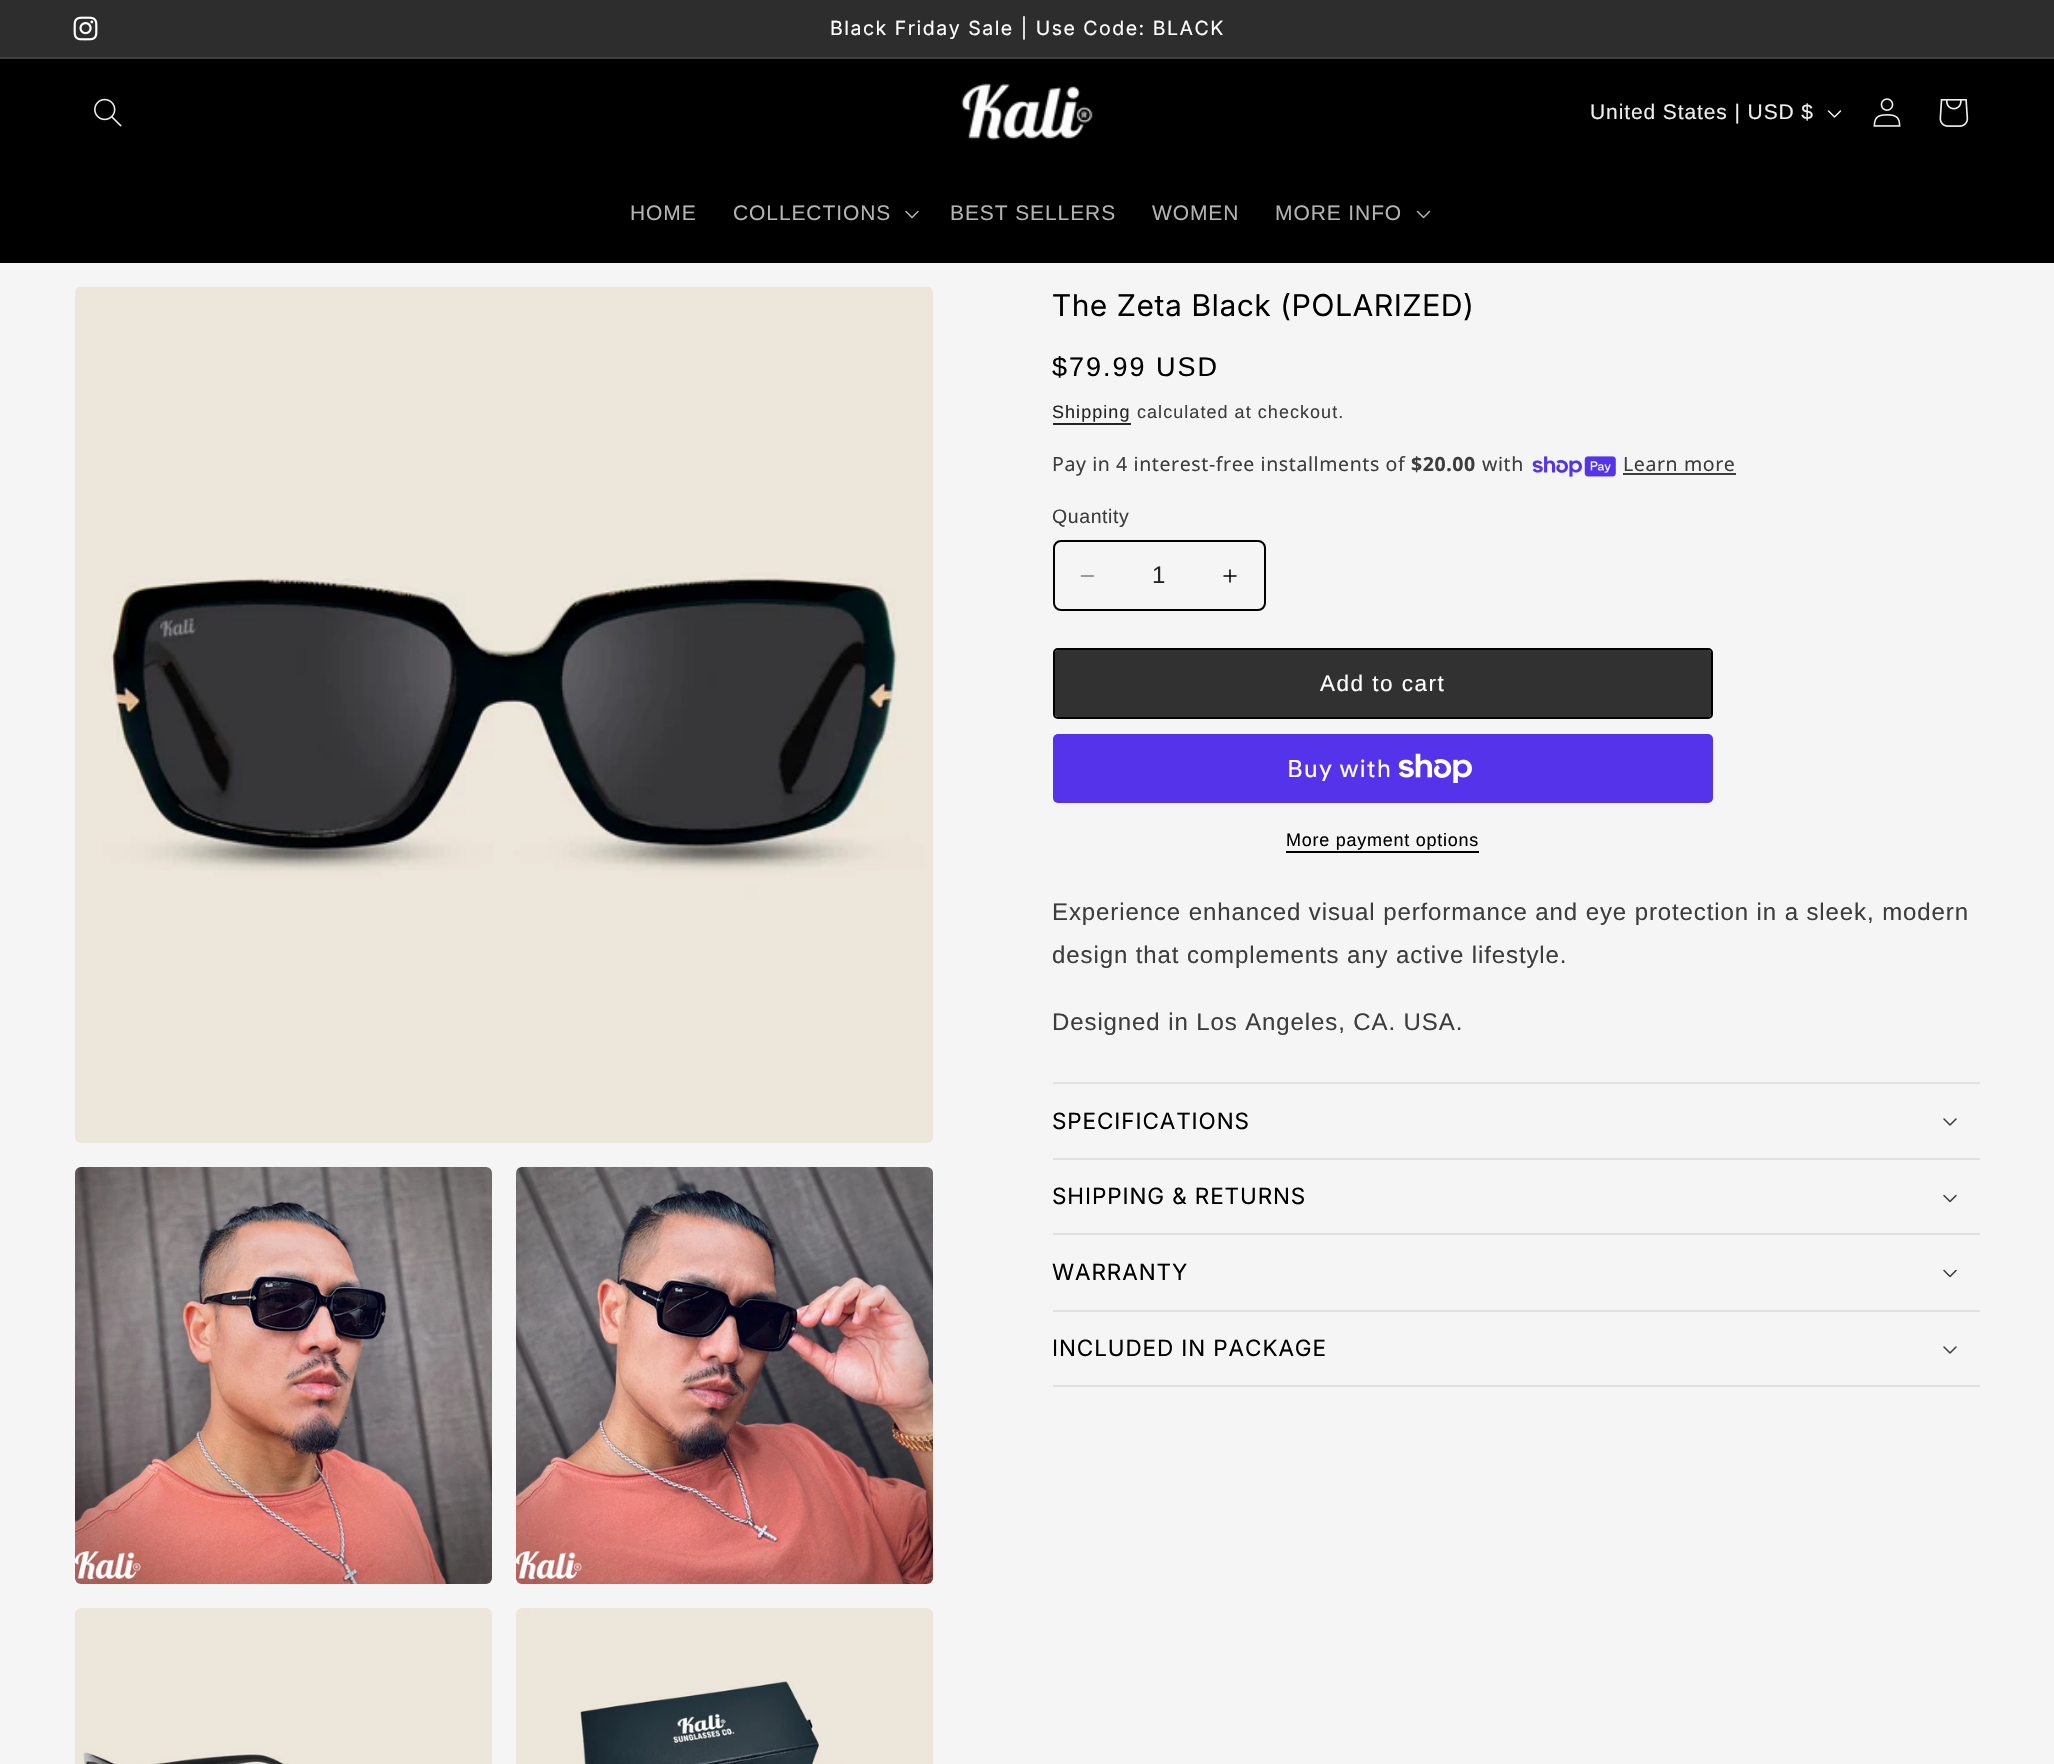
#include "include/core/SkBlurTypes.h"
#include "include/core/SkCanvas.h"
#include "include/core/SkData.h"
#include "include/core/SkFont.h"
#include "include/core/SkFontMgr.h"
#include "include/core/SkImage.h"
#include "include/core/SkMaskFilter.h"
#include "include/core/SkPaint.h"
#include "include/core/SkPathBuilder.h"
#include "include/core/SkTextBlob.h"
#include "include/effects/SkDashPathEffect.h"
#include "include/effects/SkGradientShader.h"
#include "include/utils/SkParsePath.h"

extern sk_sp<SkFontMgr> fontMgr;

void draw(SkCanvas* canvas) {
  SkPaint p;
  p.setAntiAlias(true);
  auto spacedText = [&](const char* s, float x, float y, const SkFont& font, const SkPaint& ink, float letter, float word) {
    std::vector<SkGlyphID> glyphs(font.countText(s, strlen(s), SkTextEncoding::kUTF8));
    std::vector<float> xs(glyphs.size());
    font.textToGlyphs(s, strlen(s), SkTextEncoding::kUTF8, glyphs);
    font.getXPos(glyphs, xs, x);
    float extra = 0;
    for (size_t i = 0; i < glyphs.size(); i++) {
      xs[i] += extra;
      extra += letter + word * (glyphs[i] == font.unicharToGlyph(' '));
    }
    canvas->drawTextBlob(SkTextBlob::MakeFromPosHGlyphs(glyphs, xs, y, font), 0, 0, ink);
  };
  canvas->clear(SkColorSetRGB(245, 245, 245));
  p.setColor(SkColorSetRGB(45, 45, 45));
  canvas->drawRect(SkRect::MakeLTRB(0, 0, 2054, 57), p);
  p.setColor(SkColorSetRGB(62, 62, 62));
  canvas->drawRect(SkRect::MakeLTRB(0, 57, 2054, 59), p);
  canvas->drawImageRect(SkImages::DeferredFromEncodedData(SkData::MakeFromFileName("images/1.png")), SkRect::MakeLTRB(73, 16, 98, 41), SkSamplingOptions());
  p.setColor(SK_ColorBLACK);
  canvas->drawRect(SkRect::MakeLTRB(0, 59, 2054, 263), p);
  canvas->drawImageRect(SkImages::DeferredFromEncodedData(SkData::MakeFromFileName("images/2.png")), SkRect::MakeLTRB(94, 98, 122, 127), SkSamplingOptions());
  canvas->drawImageRect(SkImages::DeferredFromEncodedData(SkData::MakeFromFileName("images/3.png")), SkRect::MakeLTRB(961, 83, 1093, 140), SkSamplingOptions());
  canvas->drawImageRect(SkImages::DeferredFromEncodedData(SkData::MakeFromFileName("images/4.png")), SkRect::MakeLTRB(1827, 110, 1842, 118), SkSamplingOptions());
  canvas->drawImageRect(SkImages::DeferredFromEncodedData(SkData::MakeFromFileName("images/5.png")), SkRect::MakeLTRB(1873, 98, 1901, 127), SkSamplingOptions());
  canvas->drawImageRect(SkImages::DeferredFromEncodedData(SkData::MakeFromFileName("images/6.png")), SkRect::MakeLTRB(1939, 99, 1969, 127), SkSamplingOptions());
  canvas->drawImageRect(SkImages::DeferredFromEncodedData(SkData::MakeFromFileName("images/7.png")), SkRect::MakeLTRB(905, 210, 919, 219), SkSamplingOptions());
  canvas->drawImageRect(SkImages::DeferredFromEncodedData(SkData::MakeFromFileName("images/8.png")), SkRect::MakeLTRB(1416, 210, 1431, 219), SkSamplingOptions());
  canvas->drawImageRect(SkImages::DeferredFromEncodedData(SkData::MakeFromFileName("images/9.png")), SkRect::MakeLTRB(75, 286, 933, 1143), SkSamplingOptions());
  canvas->drawImageRect(SkImages::DeferredFromEncodedData(SkData::MakeFromFileName("images/10.png")), SkRect::MakeLTRB(75, 1167, 492, 1584), SkSamplingOptions());
  canvas->drawImageRect(SkImages::DeferredFromEncodedData(SkData::MakeFromFileName("images/11.png")), SkRect::MakeLTRB(516, 1167, 933, 1584), SkSamplingOptions());
  canvas->drawImageRect(SkImages::DeferredFromEncodedData(SkData::MakeFromFileName("images/12.png")), SkRect::MakeLTRB(75, 1608, 492, 1764), SkSamplingOptions());
  canvas->drawImageRect(SkImages::DeferredFromEncodedData(SkData::MakeFromFileName("images/13.png")), SkRect::MakeLTRB(516, 1608, 933, 1764), SkSamplingOptions());
  p.setColor(SkColorSetRGB(37, 37, 37));
  canvas->drawRect(SkRect::MakeLTRB(1053, 423, 1131, 425), p);
  canvas->drawImageRect(SkImages::DeferredFromEncodedData(SkData::MakeFromFileName("images/14.png")), SkRect::MakeLTRB(1532, 456, 1616, 477), SkSamplingOptions());
  p.setColor(SkColorSetRGB(61, 61, 61));
  canvas->drawRect(SkRect::MakeLTRB(1623, 473, 1736, 475), p);
  canvas->drawImageRect(SkImages::DeferredFromEncodedData(SkData::MakeFromFileName("images/15.png")), SkRect::MakeLTRB(1080, 575, 1095, 577), SkSamplingOptions());
  canvas->drawImageRect(SkImages::DeferredFromEncodedData(SkData::MakeFromFileName("images/16.png")), SkRect::MakeLTRB(1223, 569, 1237, 583), SkSamplingOptions());
  p.setStyle(SkPaint::kStroke_Style);
  p.setStrokeWidth(2);
  p.setColor(SK_ColorBLACK);
  canvas->drawRoundRect(SkRect::MakeLTRB(1054, 541, 1265, 610), 7, 7, p);
  p.setStyle(SkPaint::kFill_Style);
  p.setColor(SkColorSetRGB(49, 49, 49));
  canvas->drawRoundRect(SkRect::MakeLTRB(1053, 648, 1713, 719), 5, 5, p);
  p.setStyle(SkPaint::kStroke_Style);
  p.setColor(SkColorSetRGB(245, 245, 245));
  canvas->drawRoundRect(SkRect::MakeLTRB(1054, 649, 1712, 718), 4, 4, p);
  p.setColor(SK_ColorBLACK);
  canvas->drawRoundRect(SkRect::MakeLTRB(1054, 649, 1712, 718), 4, 4, p);
  p.setStyle(SkPaint::kFill_Style);
  p.setColor(SkColorSetRGB(84, 51, 235));
  canvas->drawRoundRect(SkRect::MakeLTRB(1053, 734, 1713, 803), 5, 5, p);
  canvas->drawImageRect(SkImages::DeferredFromEncodedData(SkData::MakeFromFileName("images/17.png")), SkRect::MakeLTRB(1398, 753, 1472, 783), SkSamplingOptions());
  p.setColor(SK_ColorBLACK);
  canvas->drawRect(SkRect::MakeLTRB(1286, 851, 1479, 853), p);
  p.setColor(SkColorSetRGB(225, 225, 225));
  canvas->drawRect(SkRect::MakeLTRB(1053, 1082, 1980, 1084), p);
  canvas->drawRect(SkRect::MakeLTRB(1053, 1158, 1980, 1160), p);
  canvas->drawImageRect(SkImages::DeferredFromEncodedData(SkData::MakeFromFileName("images/18.png")), SkRect::MakeLTRB(1943, 1118, 1957, 1126), SkSamplingOptions());
  canvas->drawRect(SkRect::MakeLTRB(1053, 1233, 1980, 1235), p);
  canvas->drawImageRect(SkImages::DeferredFromEncodedData(SkData::MakeFromFileName("images/19.png")), SkRect::MakeLTRB(1943, 1194, 1957, 1203), SkSamplingOptions());
  canvas->drawRect(SkRect::MakeLTRB(1053, 1310, 1980, 1312), p);
  canvas->drawImageRect(SkImages::DeferredFromEncodedData(SkData::MakeFromFileName("images/19.png")), SkRect::MakeLTRB(1943, 1269, 1957, 1278), SkSamplingOptions());
  canvas->drawRect(SkRect::MakeLTRB(1053, 1385, 1980, 1387), p);
  canvas->drawImageRect(SkImages::DeferredFromEncodedData(SkData::MakeFromFileName("images/18.png")), SkRect::MakeLTRB(1943, 1346, 1957, 1354), SkSamplingOptions());
  SkFont font1(fontMgr->matchFamilyStyle("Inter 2", SkFontStyle::Normal()), 19.5f);
  font1.setSubpixel(true);
  p.setColor(SK_ColorWHITE);
  spacedText("Black Friday Sale | Use Code: BLACK", 830, 35, font1, p, 1.5f, 0);
  SkFont font2(fontMgr->matchFamilyStyle("Liberation Sans", SkFontStyle::Normal()), 21);
  font2.setSubpixel(true);
  p.setColor(SkColorSetRGB(240, 238, 237));
  spacedText("United States | USD $", 1590, 119, font2, p, 0.9f, 0);
  p.setColor(SkColorSetRGB(180, 179, 178));
  spacedText("HOME", 630, 220, font2, p, 0.9f, 0);
  spacedText("COLLECTIONS", 733, 220, font2, p, 0.9f, 0);
  spacedText("BEST SELLERS", 950, 220, font2, p, 0.9f, 0);
  spacedText("WOMEN", 1152, 220, font2, p, 0.9f, 0);
  spacedText("MORE INFO", 1275, 220, font2, p, 0.9f, 0);
  SkFont font3(fontMgr->matchFamilyStyle("Inter", SkFontStyle::Normal()), 30);
  font3.setSubpixel(true);
  p.setColor(SK_ColorBLACK);
  spacedText("The Zeta Black (POLARIZED)", 1052, 316, font3, p, 0.9f, 0);
  SkFont font4(fontMgr->matchFamilyStyle("Liberation Sans", SkFontStyle::Normal()), 27);
  font4.setSubpixel(true);
  spacedText("$79.99 USD", 1052, 376, font4, p, 2, 0);
  SkFont font5(fontMgr->matchFamilyStyle("Liberation Sans", SkFontStyle::Normal()), 18);
  font5.setSubpixel(true);
  p.setColor(SkColorSetRGB(37, 37, 37));
  spacedText("Shipping", 1052, 418, font5, p, 1.05f, 0);
  p.setColor(SkColorSetRGB(61, 61, 61));
  spacedText("calculated at checkout.", 1137, 418, font5, p, 1.05f, 0);
  SkFont font6(fontMgr->matchFamilyStyle("Noto Sans", SkFontStyle::Normal()), 19.5f);
  font6.setSubpixel(true);
  spacedText("Pay in 4 interest-free installments of", 1052, 471, font6, p, 0.6f, 0);
  SkFont font7(fontMgr->matchFamilyStyle("Noto Sans", SkFontStyle::Bold()), 19.5f);
  font7.setSubpixel(true);
  spacedText("$20.00", 1411, 471, font7, p, 0.6f, 0);
  spacedText("with", 1482, 471, font6, p, 0.6f, 0);
  spacedText("Learn more", 1623, 471, font6, p, 0.6f, 0);
  SkFont font8(fontMgr->matchFamilyStyle("Liberation Sans", SkFontStyle::Normal()), 19.5f);
  font8.setSubpixel(true);
  spacedText("Quantity", 1052, 523, font8, p, 0.6f, 0);
  SkFont font9(fontMgr->matchFamilyStyle("Liberation Sans", SkFontStyle::Normal()), 24);
  font9.setSubpixel(true);
  p.setColor(SkColorSetRGB(37, 37, 37));
  canvas->drawString("1", 1152, 583, font9, p);
  SkFont font10(fontMgr->matchFamilyStyle("Liberation Sans", SkFontStyle::Normal()), 22.5f);
  font10.setSubpixel(true);
  p.setColor(SK_ColorWHITE);
  spacedText("Add to cart", 1320, 691, font10, p, 1.5f, 0);
  SkFont font11(fontMgr->matchFamilyStyle("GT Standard", SkFontStyle::Normal()), 24);
  font11.setSubpixel(true);
  spacedText("Buy with", 1287, 777, font11, p, 0.9f, 0);
  p.setColor(SK_ColorBLACK);
  spacedText("More payment options", 1286, 846, font5, p, 0.75f, 0);
  p.setColor(SkColorSetRGB(61, 61, 61));
  spacedText("Experience enhanced visual performance and eye protection in a sleek, modern", 1052, 920, font9, p, 0.9f, 0);
  spacedText("design that complements any active lifestyle.", 1052, 963, font9, p, 0.9f, 0);
  spacedText("Designed in Los Angeles, CA. USA.", 1052, 1030, font9, p, 0.9f, 0);
  SkFont font12(fontMgr->matchFamilyStyle("Inter 2", SkFontStyle::Normal()), 22.5f);
  font12.setSubpixel(true);
  p.setColor(SK_ColorBLACK);
  spacedText("SPECIFICATIONS", 1052, 1129, font12, p, 0.9f, 0);
  spacedText("SHIPPING & RETURNS", 1052, 1204, font12, p, 0.9f, 0);
  spacedText("WARRANTY", 1052, 1280, font12, p, 0.9f, 0);
  spacedText("INCLUDED IN PACKAGE", 1052, 1356, font12, p, 0.9f, 0);
}
